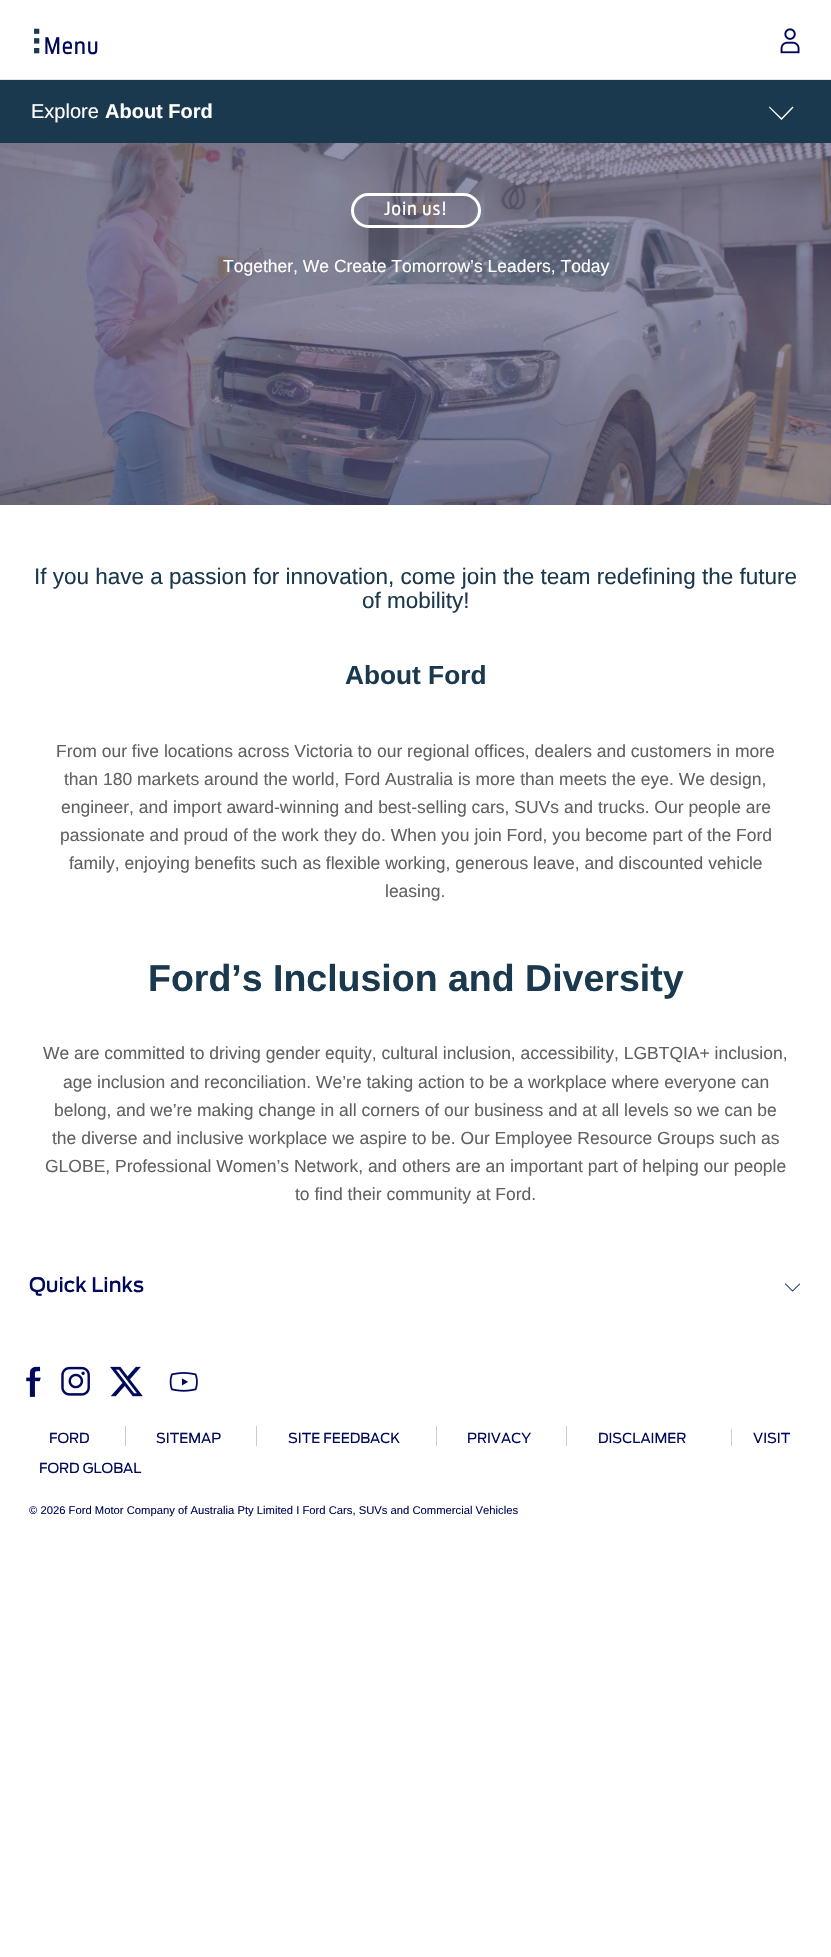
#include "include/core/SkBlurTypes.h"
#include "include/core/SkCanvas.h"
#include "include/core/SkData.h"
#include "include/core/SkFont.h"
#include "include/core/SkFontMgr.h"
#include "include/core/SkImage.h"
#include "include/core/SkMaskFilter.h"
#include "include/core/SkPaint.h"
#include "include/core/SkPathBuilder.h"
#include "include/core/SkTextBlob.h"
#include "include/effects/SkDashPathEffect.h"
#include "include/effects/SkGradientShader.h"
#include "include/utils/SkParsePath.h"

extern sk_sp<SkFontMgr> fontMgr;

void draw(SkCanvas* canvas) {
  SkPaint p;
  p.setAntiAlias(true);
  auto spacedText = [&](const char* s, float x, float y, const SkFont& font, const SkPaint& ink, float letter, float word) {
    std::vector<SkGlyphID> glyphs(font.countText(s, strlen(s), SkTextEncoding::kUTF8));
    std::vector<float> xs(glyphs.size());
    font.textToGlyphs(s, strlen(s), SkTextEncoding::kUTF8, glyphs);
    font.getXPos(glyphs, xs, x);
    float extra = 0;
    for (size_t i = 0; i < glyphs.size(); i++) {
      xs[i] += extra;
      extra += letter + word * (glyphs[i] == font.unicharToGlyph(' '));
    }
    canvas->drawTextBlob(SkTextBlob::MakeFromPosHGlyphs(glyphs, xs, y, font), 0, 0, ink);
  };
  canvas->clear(SK_ColorWHITE);
  p.setColor(SkColorSetRGB(229, 229, 229));
  canvas->drawRect(SkRect::MakeLTRB(0, 79, 831, 80), p);
  canvas->drawImageRect(SkImages::DeferredFromEncodedData(SkData::MakeFromFileName("images/1.png")), SkRect::MakeLTRB(780, 28, 800, 54), SkSamplingOptions());
  p.setColor(SkColorSetRGB(27, 57, 78));
  canvas->drawRect(SkRect::MakeLTRB(0, 80, 831, 143), p);
  p.setColor(SK_ColorWHITE);
  canvas->drawPath(SkPathBuilder().moveTo(792.5f, 106.5f).lineTo(793.5f, 107.5f).lineTo(781.5f, 120).lineTo(769, 107.5f).lineTo(769.5f, 106.5f).lineTo(781.5f, 118).close().detach(), p);
  canvas->drawImageRect(SkImages::DeferredFromEncodedData(SkData::MakeFromFileName("images/2.png")), SkRect::MakeLTRB(0, 143, 831, 505), SkSamplingOptions());
  canvas->save();
  canvas->clipPath(SkPathBuilder(SkPathFillType::kEvenOdd).moveTo(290, 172).lineTo(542, 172).lineTo(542, 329).lineTo(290, 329).close().moveTo(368.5f, 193).lineTo(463.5f, 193).cubicTo(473, 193, 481, 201, 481, 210.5f).cubicTo(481, 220, 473, 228, 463.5f, 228).lineTo(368.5f, 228).cubicTo(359, 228, 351, 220, 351, 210.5f).cubicTo(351, 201, 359, 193, 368.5f, 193).close().detach(), true);
  p.setColor(SkColorSetARGB(26, 0, 0, 0));
  p.setMaskFilter(SkMaskFilter::MakeBlur(kNormal_SkBlurStyle, 20));
  canvas->drawRoundRect(SkRect::MakeLTRB(351, 233, 481, 268), 17.5f, 17.5f, p);
  p.setMaskFilter(nullptr);
  canvas->restore();
  canvas->save();
  canvas->clipPath(SkPathBuilder(SkPathFillType::kEvenOdd).moveTo(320, 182).lineTo(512, 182).lineTo(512, 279).lineTo(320, 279).close().moveTo(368.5f, 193).lineTo(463.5f, 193).cubicTo(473, 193, 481, 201, 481, 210.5f).cubicTo(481, 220, 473, 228, 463.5f, 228).lineTo(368.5f, 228).cubicTo(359, 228, 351, 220, 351, 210.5f).cubicTo(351, 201, 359, 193, 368.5f, 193).close().detach(), true);
  p.setMaskFilter(SkMaskFilter::MakeBlur(kNormal_SkBlurStyle, 10));
  canvas->drawRoundRect(SkRect::MakeLTRB(351, 213, 481, 248), 17.5f, 17.5f, p);
  p.setMaskFilter(nullptr);
  canvas->restore();
  p.setStyle(SkPaint::kStroke_Style);
  p.setStrokeWidth(3);
  p.setColor(SK_ColorWHITE);
  canvas->drawRoundRect(SkRect::MakeLTRB(352.5f, 194.5f, 479.5f, 226.5f), 16, 16, p);
  canvas->drawImageRect(SkImages::DeferredFromEncodedData(SkData::MakeFromFileName("images/3.png")), SkRect::MakeLTRB(784, 1283, 800, 1292), SkSamplingOptions());
  canvas->drawImageRect(SkImages::DeferredFromEncodedData(SkData::MakeFromFileName("images/4.png")), SkRect::MakeLTRB(26, 1366, 41, 1397), SkSamplingOptions());
  canvas->drawImageRect(SkImages::DeferredFromEncodedData(SkData::MakeFromFileName("images/5.png")), SkRect::MakeLTRB(61, 1366, 90, 1396), SkSamplingOptions());
  canvas->drawImageRect(SkImages::DeferredFromEncodedData(SkData::MakeFromFileName("images/6.png")), SkRect::MakeLTRB(110, 1366, 143, 1397), SkSamplingOptions());
  canvas->drawImageRect(SkImages::DeferredFromEncodedData(SkData::MakeFromFileName("images/7.png")), SkRect::MakeLTRB(169, 1372, 198, 1392), SkSamplingOptions());
  p.setStyle(SkPaint::kFill_Style);
  p.setColor(SkColorSetRGB(204, 204, 204));
  canvas->drawRect(SkRect::MakeLTRB(125, 1426, 126, 1446), p);
  canvas->drawRect(SkRect::MakeLTRB(256, 1426, 257, 1446), p);
  canvas->drawRect(SkRect::MakeLTRB(436, 1426, 437, 1446), p);
  canvas->drawRect(SkRect::MakeLTRB(566, 1426, 567, 1446), p);
  canvas->drawRect(SkRect::MakeLTRB(731, 1429, 732, 1446), p);
  SkFont font1(fontMgr->matchFamilyStyle("DejaVu Sans", SkFontStyle::Normal()), 35);
  font1.setSubpixel(true);
  p.setColor(SkColorSetRGB(27, 57, 78));
  canvas->drawString("⠇", 29, 56, font1, p);
  SkFont font2(fontMgr->matchFamilyStyle("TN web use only", SkFontStyle::Normal()), 22.5f);
  font2.setSubpixel(true);
  p.setColor(SkColorSetRGB(0, 9, 91));
  spacedText("Menu", 44, 54, font2, p, 1.25f, 0);
  SkFont font3(fontMgr->matchFamilyStyle("Liberation Sans", SkFontStyle::Normal()), 20);
  font3.setSubpixel(true);
  p.setColor(SK_ColorWHITE);
  canvas->drawString("Explore", 31, 118, font3, p);
  SkFont font4(fontMgr->matchFamilyStyle("Liberation Sans", SkFontStyle::Bold()), 20);
  font4.setSubpixel(true);
  canvas->drawString("About Ford", 105, 118, font4, p);
  SkFont font5(fontMgr->matchFamilyStyle("TN web use only", SkFontStyle::Normal()), 18);
  font5.setSubpixel(true);
  spacedText("Join us!", 384, 215, font5, p, 1.25f, 0);
  SkFont font6(fontMgr->matchFamilyStyle("Liberation Sans", SkFontStyle::Normal()), 17.5f);
  font6.setSubpixel(true);
  canvas->drawString("Together, We Create Tomorrow’s Leaders, Today", 223, 272, font6, p);
  SkFont font7(fontMgr->matchFamilyStyle("Liberation Sans", SkFontStyle::Normal()), 22.5f);
  font7.setSubpixel(true);
  p.setColor(SkColorSetRGB(27, 57, 78));
  canvas->drawString("If you have a passion for innovation, come join the team redefining the future", 34, 584, font7, p);
  canvas->drawString("of mobility!", 362, 608, font7, p);
  SkFont font8(fontMgr->matchFamilyStyle("Liberation Sans", SkFontStyle::Bold()), 26.25f);
  font8.setSubpixel(true);
  canvas->drawString("About Ford", 345, 684, font8, p);
  p.setColor(SkColorSetRGB(97, 97, 97));
  canvas->drawString("From our five locations across Victoria to our regional offices, dealers and customers in more", 56, 757, font6, p);
  canvas->drawString("than 180 markets around the world, Ford Australia is more than meets the eye. We design,", 64, 785, font6, p);
  canvas->drawString("engineer, and import award-winning and best-selling cars, SUVs and trucks. Our people are", 61, 813, font6, p);
  canvas->drawString("passionate and proud of the work they do. When you join Ford, you become part of the Ford", 60, 841, font6, p);
  canvas->drawString("family, enjoying benefits such as flexible working, generous leave, and discounted vehicle", 69, 869, font6, p);
  canvas->drawString("leasing.", 385, 897, font6, p);
  SkFont font9(fontMgr->matchFamilyStyle("Liberation Sans", SkFontStyle::Bold()), 37.5f);
  font9.setSubpixel(true);
  p.setColor(SkColorSetRGB(27, 57, 78));
  canvas->drawString("Ford’s Inclusion and Diversity", 148, 991, font9, p);
  p.setColor(SkColorSetRGB(97, 97, 97));
  canvas->drawString("We are committed to driving gender equity, cultural inclusion, accessibility, LGBTQIA+ inclusion,", 43, 1059, font6, p);
  canvas->drawString("age inclusion and reconciliation. We’re taking action to be a workplace where everyone can", 63, 1088, font6, p);
  canvas->drawString("belong, and we’re making change in all corners of our business and at all levels so we can be", 54, 1116, font6, p);
  canvas->drawString("the diverse and inclusive workplace we aspire to be. Our Employee Resource Groups such as", 52, 1144, font6, p);
  canvas->drawString("GLOBE, Professional Women’s Network, and others are an important part of helping our people", 45, 1172, font6, p);
  canvas->drawString("to find their community at Ford.", 295, 1200, font6, p);
  SkFont font10(fontMgr->matchFamilyStyle("TN web use only", SkFontStyle(500, SkFontStyle::kNormal_Width, SkFontStyle::kUpright_Slant)), 20);
  font10.setSubpixel(true);
  p.setColor(SkColorSetRGB(0, 9, 91));
  canvas->drawString("Quick Links", 29, 1292, font10, p);
  SkFont font11(fontMgr->matchFamilyStyle("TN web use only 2", SkFontStyle::Normal()), 13.75f);
  font11.setSubpixel(true);
  canvas->drawString("FORD", 49, 1443, font11, p);
  canvas->drawString("SITEMAP", 156, 1443, font11, p);
  canvas->drawString("SITE FEEDBACK", 288, 1443, font11, p);
  canvas->drawString("PRIVACY", 467, 1443, font11, p);
  canvas->drawString("DISCLAIMER", 598, 1443, font11, p);
  canvas->drawString("VISIT", 753, 1443, font11, p);
  canvas->drawString("FORD GLOBAL", 39, 1473, font11, p);
  SkFont font12(fontMgr->matchFamilyStyle("Liberation Sans", SkFontStyle::Normal()), 11.25f);
  font12.setSubpixel(true);
  canvas->drawString("© 2026 Ford Motor Company of Australia Pty Limited I Ford Cars, SUVs and Commercial Vehicles", 29, 1514, font12, p);
}
